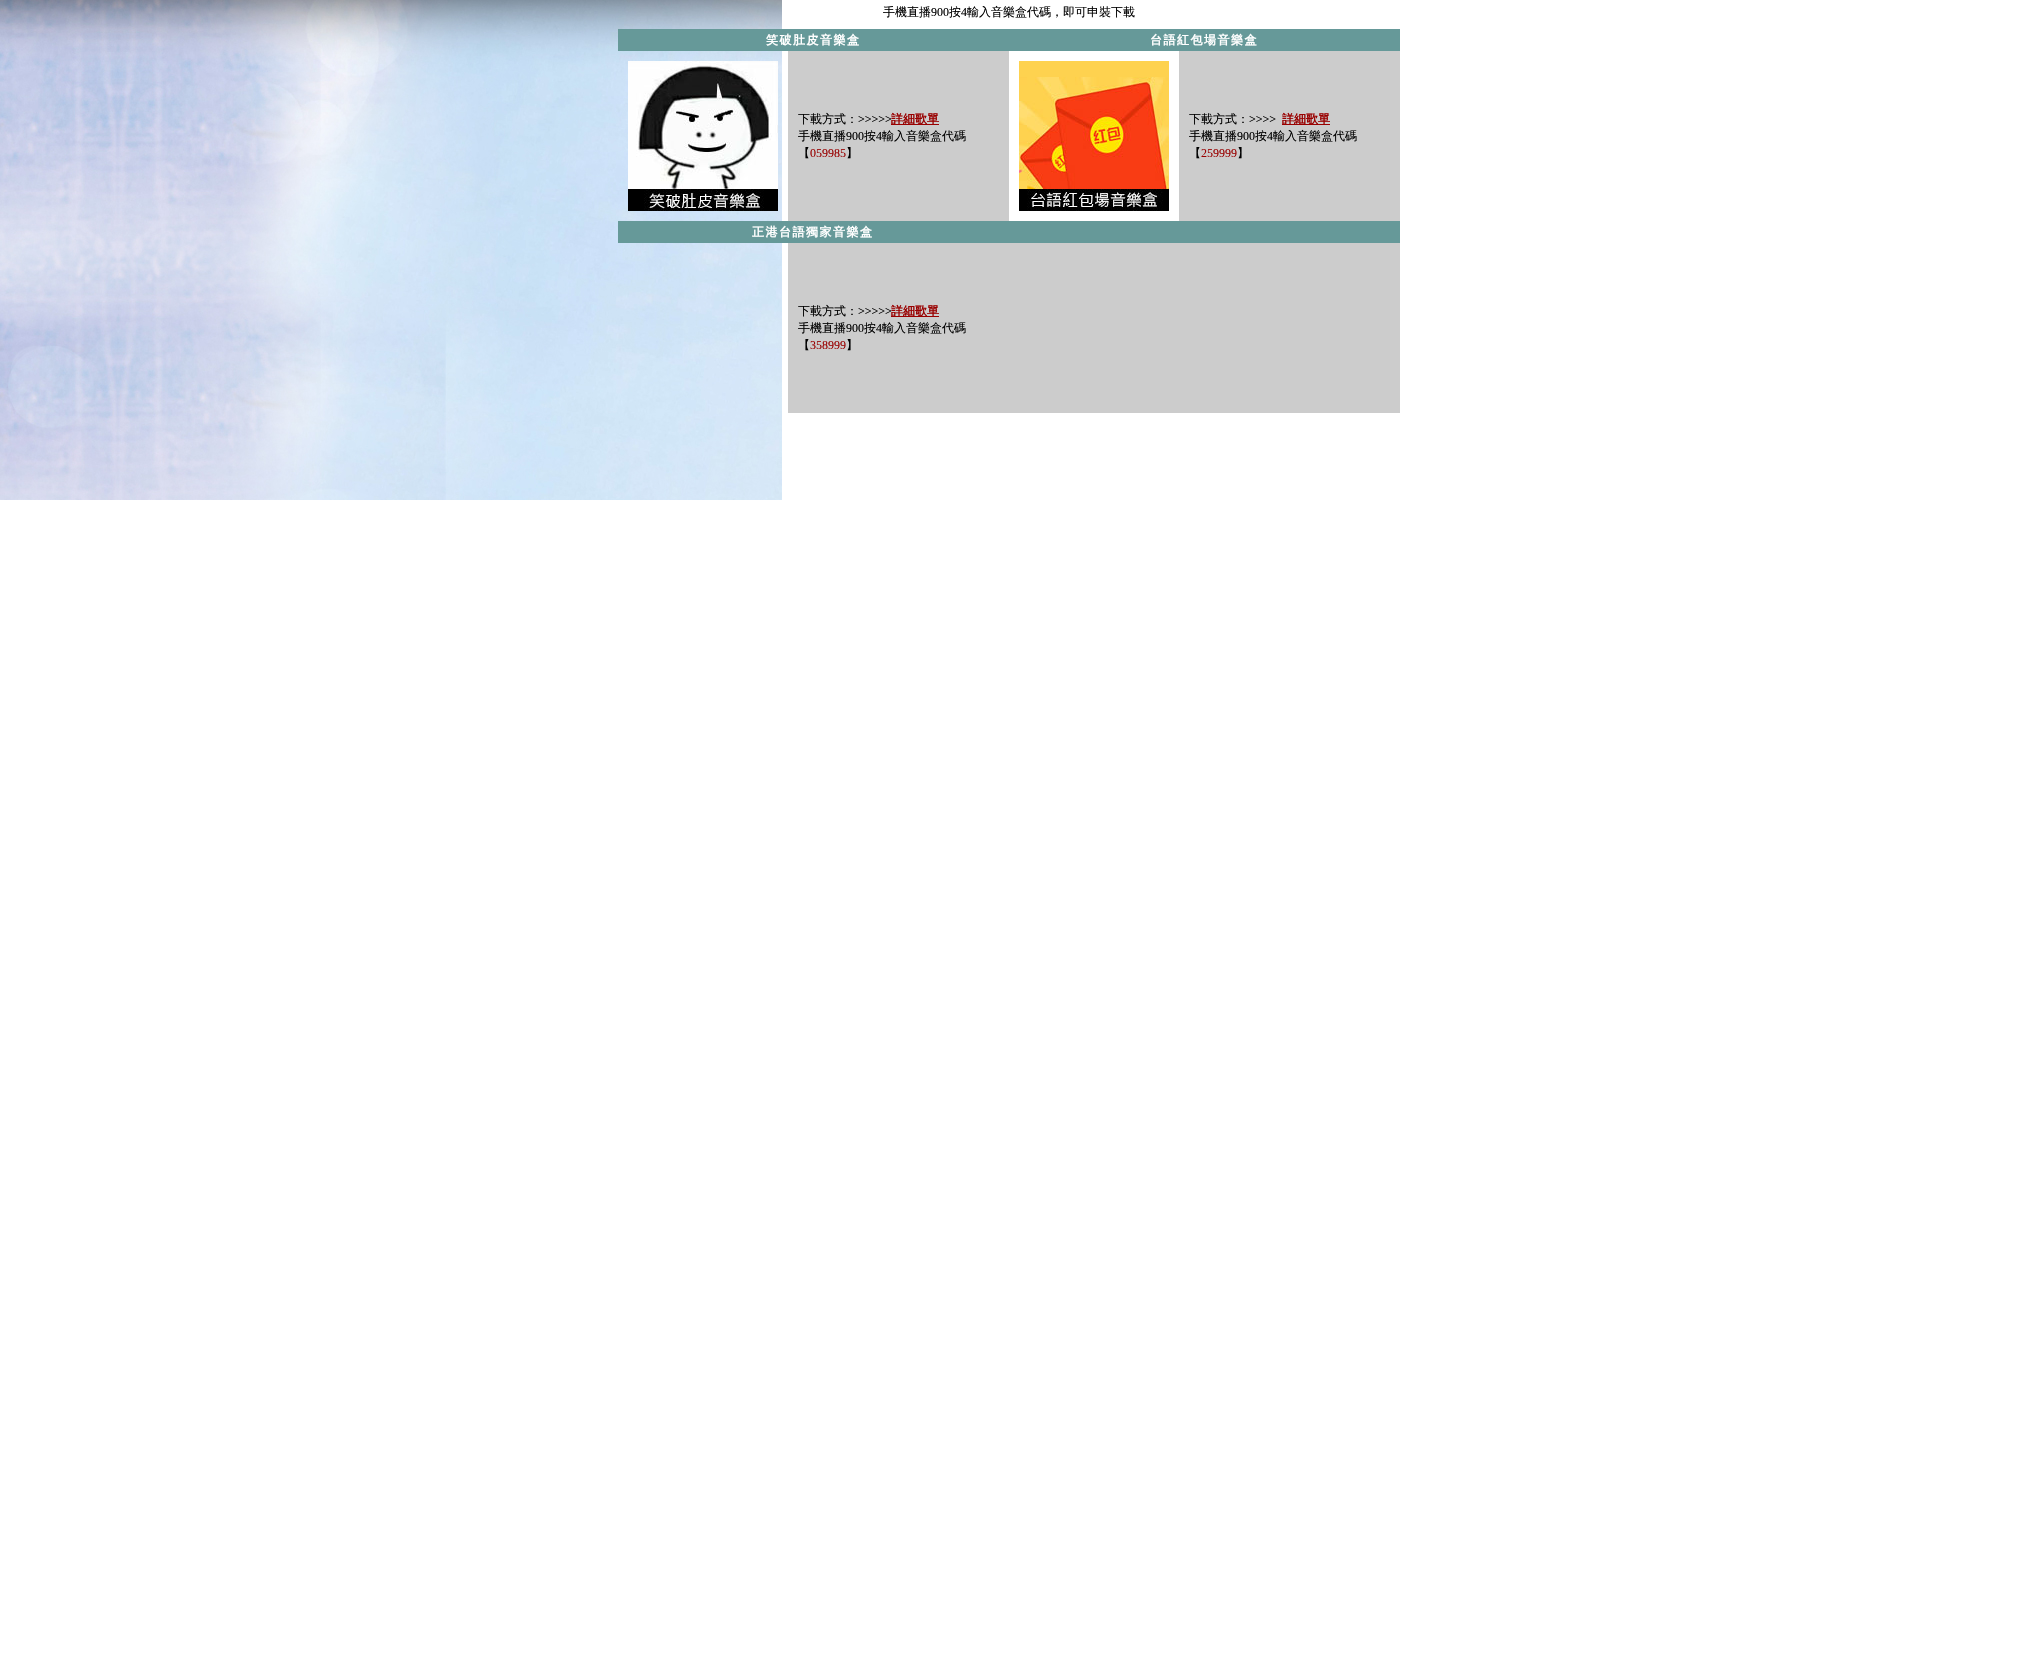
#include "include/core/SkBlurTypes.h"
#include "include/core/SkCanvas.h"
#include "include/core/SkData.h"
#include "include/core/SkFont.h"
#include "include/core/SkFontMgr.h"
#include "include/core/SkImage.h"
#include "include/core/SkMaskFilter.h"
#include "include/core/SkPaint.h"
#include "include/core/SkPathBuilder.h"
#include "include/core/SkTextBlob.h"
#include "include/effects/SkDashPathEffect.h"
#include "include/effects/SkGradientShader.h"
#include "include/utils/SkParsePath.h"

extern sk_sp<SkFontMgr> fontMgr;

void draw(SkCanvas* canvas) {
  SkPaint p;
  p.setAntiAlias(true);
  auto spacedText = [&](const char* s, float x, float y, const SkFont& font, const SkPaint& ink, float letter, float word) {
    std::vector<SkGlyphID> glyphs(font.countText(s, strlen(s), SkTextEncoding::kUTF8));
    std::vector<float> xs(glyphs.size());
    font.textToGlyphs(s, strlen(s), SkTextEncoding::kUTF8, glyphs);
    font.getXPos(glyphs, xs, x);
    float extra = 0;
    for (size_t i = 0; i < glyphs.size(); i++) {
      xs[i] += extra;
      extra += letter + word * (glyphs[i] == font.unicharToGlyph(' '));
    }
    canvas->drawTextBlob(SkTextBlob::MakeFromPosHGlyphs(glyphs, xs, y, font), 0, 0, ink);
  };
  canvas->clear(SK_ColorWHITE);
  canvas->drawImageRect(SkImages::DeferredFromEncodedData(SkData::MakeFromFileName("images/1.png")), SkRect::MakeLTRB(0, 0, 782, 500), SkSamplingOptions());
  p.setColor(SkColorSetRGB(102, 153, 153));
  canvas->drawRect(SkRect::MakeLTRB(618, 29, 1400, 51), p);
  canvas->drawImageRect(SkImages::DeferredFromEncodedData(SkData::MakeFromFileName("images/2.png")), SkRect::MakeLTRB(628, 61, 778, 211), SkSamplingOptions());
  p.setColor(SkColorSetRGB(204, 204, 204));
  canvas->drawRect(SkRect::MakeLTRB(788, 51, 1009, 221), p);
  p.setColor(SkColorSetRGB(153, 0, 0));
  canvas->drawRect(SkRect::MakeLTRB(891, 124, 939, 125), p);
  canvas->drawImageRect(SkImages::DeferredFromEncodedData(SkData::MakeFromFileName("images/3.png")), SkRect::MakeLTRB(1019, 61, 1169, 211), SkSamplingOptions());
  p.setColor(SkColorSetRGB(204, 204, 204));
  canvas->drawRect(SkRect::MakeLTRB(1179, 51, 1400, 221), p);
  p.setColor(SkColorSetRGB(153, 0, 0));
  canvas->drawRect(SkRect::MakeLTRB(1282, 124, 1330, 125), p);
  p.setColor(SkColorSetRGB(102, 153, 153));
  canvas->drawRect(SkRect::MakeLTRB(618, 221, 1400, 243), p);
  p.setColor(SkColorSetRGB(204, 204, 204));
  canvas->drawRect(SkRect::MakeLTRB(788, 243, 1400, 413), p);
  p.setColor(SkColorSetRGB(153, 0, 0));
  canvas->drawRect(SkRect::MakeLTRB(891, 316, 939, 317), p);
  SkFont font1(fontMgr->matchFamilyStyle("WenQuanYi Zen Hei", SkFontStyle(500, SkFontStyle::kNormal_Width, SkFontStyle::kUpright_Slant)), 12);
  font1.setSubpixel(true);
  p.setColor(SK_ColorBLACK);
  canvas->drawString("手機直播", 883, 16, font1, p);
  SkFont font2(fontMgr->matchFamilyStyle("Liberation Serif", SkFontStyle::Normal()), 12);
  font2.setSubpixel(true);
  canvas->drawString("900", 931, 16, font2, p);
  canvas->drawString("按", 949, 16, font1, p);
  canvas->drawString("4", 961, 16, font2, p);
  canvas->drawString("輸入音樂盒代碼，即可申裝下載", 967, 16, font1, p);
  SkFont font3(fontMgr->matchFamilyStyle("WenQuanYi Zen Hei", SkFontStyle::Bold()), 12);
  font3.setSubpixel(true);
  p.setColor(SK_ColorWHITE);
  spacedText("笑破肚皮音樂盒", 766, 44, font3, p, 1.5f, 0);
  spacedText("台語紅包場音樂盒", 1150, 44, font3, p, 1.5f, 0);
  p.setColor(SK_ColorBLACK);
  canvas->drawString("下載方式：", 798, 123, font1, p);
  canvas->drawString(">>>>>", 858, 123, font2, p);
  p.setColor(SkColorSetRGB(153, 0, 0));
  canvas->drawString("詳細歌單", 891, 123, font3, p);
  p.setColor(SK_ColorBLACK);
  canvas->drawString("手機直播", 798, 140, font1, p);
  canvas->drawString("900", 846, 140, font2, p);
  canvas->drawString("按", 864, 140, font1, p);
  canvas->drawString("4", 876, 140, font2, p);
  canvas->drawString("輸入音樂盒代碼", 882, 140, font1, p);
  canvas->drawString("【", 798, 157, font1, p);
  p.setColor(SkColorSetRGB(153, 0, 0));
  canvas->drawString("059985", 810, 157, font2, p);
  p.setColor(SK_ColorBLACK);
  canvas->drawString("】", 846, 157, font1, p);
  canvas->drawString("下載方式：", 1189, 123, font1, p);
  canvas->drawString(">>>>", 1249, 123, font2, p);
  p.setColor(SkColorSetRGB(153, 0, 0));
  canvas->drawString("詳細歌單", 1282, 123, font3, p);
  p.setColor(SK_ColorBLACK);
  canvas->drawString("手機直播", 1189, 140, font1, p);
  canvas->drawString("900", 1237, 140, font2, p);
  canvas->drawString("按", 1255, 140, font1, p);
  canvas->drawString("4", 1267, 140, font2, p);
  canvas->drawString("輸入音樂盒代碼", 1273, 140, font1, p);
  canvas->drawString("【", 1189, 157, font1, p);
  p.setColor(SkColorSetRGB(153, 0, 0));
  canvas->drawString("259999", 1201, 157, font2, p);
  p.setColor(SK_ColorBLACK);
  canvas->drawString("】", 1237, 157, font1, p);
  p.setColor(SK_ColorWHITE);
  spacedText("正港台語獨家音樂盒", 752, 236, font3, p, 1.5f, 0);
  p.setColor(SK_ColorBLACK);
  canvas->drawString("下載方式：", 798, 315, font1, p);
  canvas->drawString(">>>>>", 858, 315, font2, p);
  p.setColor(SkColorSetRGB(153, 0, 0));
  canvas->drawString("詳細歌單", 891, 315, font3, p);
  p.setColor(SK_ColorBLACK);
  canvas->drawString("手機直播", 798, 332, font1, p);
  canvas->drawString("900", 846, 332, font2, p);
  canvas->drawString("按", 864, 332, font1, p);
  canvas->drawString("4", 876, 332, font2, p);
  canvas->drawString("輸入音樂盒代碼", 882, 332, font1, p);
  canvas->drawString("【", 798, 349, font1, p);
  p.setColor(SkColorSetRGB(153, 0, 0));
  canvas->drawString("358999", 810, 349, font2, p);
  p.setColor(SK_ColorBLACK);
  canvas->drawString("】", 846, 349, font1, p);
}
